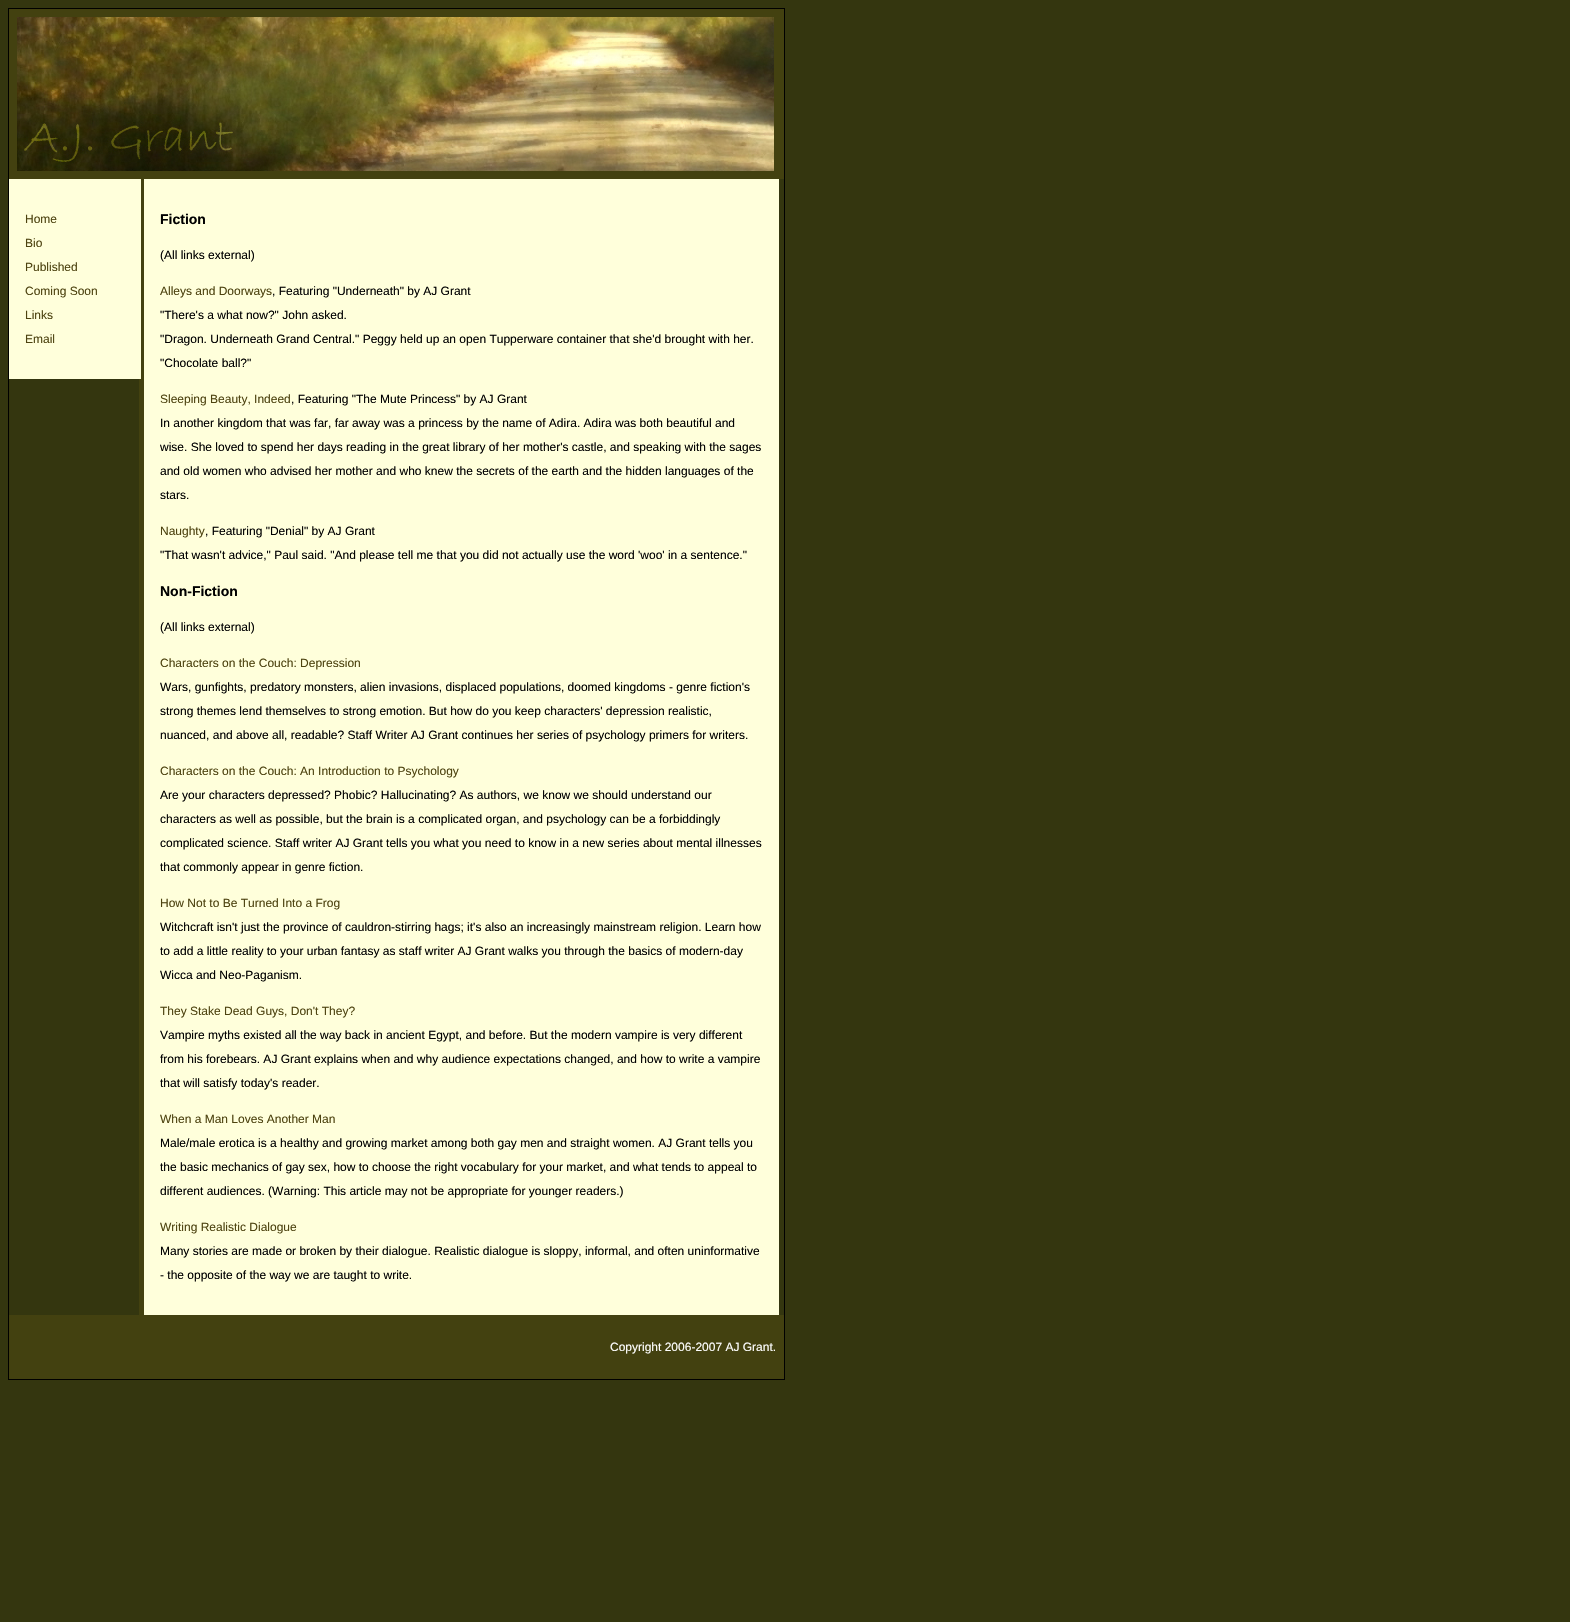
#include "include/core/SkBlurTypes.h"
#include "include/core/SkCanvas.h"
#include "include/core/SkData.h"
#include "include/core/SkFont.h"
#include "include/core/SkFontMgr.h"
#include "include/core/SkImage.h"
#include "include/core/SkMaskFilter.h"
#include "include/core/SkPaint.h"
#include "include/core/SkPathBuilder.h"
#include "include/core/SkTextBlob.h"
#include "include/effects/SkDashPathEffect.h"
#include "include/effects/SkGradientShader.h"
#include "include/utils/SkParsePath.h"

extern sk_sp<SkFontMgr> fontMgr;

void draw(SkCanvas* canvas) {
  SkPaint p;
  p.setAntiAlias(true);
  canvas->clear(SkColorSetRGB(52, 54, 15));
  p.setStyle(SkPaint::kStroke_Style);
  p.setStrokeWidth(1);
  p.setColor(SK_ColorBLACK);
  canvas->drawRect(SkRect::MakeLTRB(8.5f, 8.5f, 784.5f, 1379.5f), p);
  p.setStyle(SkPaint::kFill_Style);
  p.setColor(SkColorSetRGB(67, 65, 16));
  canvas->drawRect(SkRect::MakeLTRB(9, 9, 784, 179), p);
  canvas->drawImageRect(SkImages::DeferredFromEncodedData(SkData::MakeFromFileName("images/1.png")), SkRect::MakeLTRB(17, 17, 774, 171), SkSamplingOptions());
  canvas->drawRect(SkRect::MakeLTRB(139, 179, 144, 1315), p);
  p.setColor(SkColorSetRGB(255, 255, 219));
  canvas->drawRect(SkRect::MakeLTRB(9, 179, 141, 379), p);
  canvas->drawRect(SkRect::MakeLTRB(144, 179, 779, 1315), p);
  p.setColor(SkColorSetRGB(67, 65, 16));
  canvas->drawRect(SkRect::MakeLTRB(9, 1315, 784, 1379), p);
  SkFont font1(fontMgr->matchFamilyStyle("Liberation Sans", SkFontStyle::Normal()), 12);
  font1.setSubpixel(true);
  p.setColor(SkColorSetRGB(77, 67, 16));
  canvas->drawString("Home", 25, 223, font1, p);
  canvas->drawString("Bio", 25, 247, font1, p);
  canvas->drawString("Published", 25, 271, font1, p);
  canvas->drawString("Coming Soon", 25, 295, font1, p);
  canvas->drawString("Links", 25, 319, font1, p);
  canvas->drawString("Email", 25, 343, font1, p);
  SkFont font2(fontMgr->matchFamilyStyle("Liberation Sans", SkFontStyle::Bold()), 14);
  font2.setSubpixel(true);
  p.setColor(SK_ColorBLACK);
  canvas->drawString("Fiction", 160, 224, font2, p);
  canvas->drawString("(All links external)", 160, 259, font1, p);
  p.setColor(SkColorSetRGB(77, 67, 16));
  canvas->drawString("Alleys and Doorways", 160, 295, font1, p);
  p.setColor(SK_ColorBLACK);
  canvas->drawString(", Featuring \"Underneath\" by AJ Grant", 272, 295, font1, p);
  canvas->drawString("\"There's a what now?\" John asked.", 160, 319, font1, p);
  canvas->drawString("\"Dragon. Underneath Grand Central.\" Peggy held up an open Tupperware container that she'd brought with her.", 160, 343, font1, p);
  canvas->drawString("\"Chocolate ball?\"", 160, 367, font1, p);
  p.setColor(SkColorSetRGB(77, 67, 16));
  canvas->drawString("Sleeping Beauty, Indeed", 160, 403, font1, p);
  p.setColor(SK_ColorBLACK);
  canvas->drawString(", Featuring \"The Mute Princess\" by AJ Grant", 291, 403, font1, p);
  canvas->drawString("In another kingdom that was far, far away was a princess by the name of Adira. Adira was both beautiful and", 160, 427, font1, p);
  canvas->drawString("wise. She loved to spend her days reading in the great library of her mother's castle, and speaking with the sages", 160, 451, font1, p);
  canvas->drawString("and old women who advised her mother and who knew the secrets of the earth and the hidden languages of the", 160, 475, font1, p);
  canvas->drawString("stars.", 160, 499, font1, p);
  p.setColor(SkColorSetRGB(77, 67, 16));
  canvas->drawString("Naughty", 160, 535, font1, p);
  p.setColor(SK_ColorBLACK);
  canvas->drawString(", Featuring \"Denial\" by AJ Grant", 205, 535, font1, p);
  canvas->drawString("\"That wasn't advice,\" Paul said. \"And please tell me that you did not actually use the word 'woo' in a sentence.\"", 160, 559, font1, p);
  canvas->drawString("Non-Fiction", 160, 596, font2, p);
  canvas->drawString("(All links external)", 160, 631, font1, p);
  p.setColor(SkColorSetRGB(77, 67, 16));
  canvas->drawString("Characters on the Couch: Depression", 160, 667, font1, p);
  p.setColor(SK_ColorBLACK);
  canvas->drawString("Wars, gunfights, predatory monsters, alien invasions, displaced populations, doomed kingdoms - genre fiction's", 160, 691, font1, p);
  canvas->drawString("strong themes lend themselves to strong emotion. But how do you keep characters' depression realistic,", 160, 715, font1, p);
  canvas->drawString("nuanced, and above all, readable? Staff Writer AJ Grant continues her series of psychology primers for writers.", 160, 739, font1, p);
  p.setColor(SkColorSetRGB(77, 67, 16));
  canvas->drawString("Characters on the Couch: An Introduction to Psychology", 160, 775, font1, p);
  p.setColor(SK_ColorBLACK);
  canvas->drawString("Are your characters depressed? Phobic? Hallucinating? As authors, we know we should understand our", 160, 799, font1, p);
  canvas->drawString("characters as well as possible, but the brain is a complicated organ, and psychology can be a forbiddingly", 160, 823, font1, p);
  canvas->drawString("complicated science. Staff writer AJ Grant tells you what you need to know in a new series about mental illnesses", 160, 847, font1, p);
  canvas->drawString("that commonly appear in genre fiction.", 160, 871, font1, p);
  p.setColor(SkColorSetRGB(77, 67, 16));
  canvas->drawString("How Not to Be Turned Into a Frog", 160, 907, font1, p);
  p.setColor(SK_ColorBLACK);
  canvas->drawString("Witchcraft isn't just the province of cauldron-stirring hags; it's also an increasingly mainstream religion. Learn how", 160, 931, font1, p);
  canvas->drawString("to add a little reality to your urban fantasy as staff writer AJ Grant walks you through the basics of modern-day", 160, 955, font1, p);
  canvas->drawString("Wicca and Neo-Paganism.", 160, 979, font1, p);
  p.setColor(SkColorSetRGB(77, 67, 16));
  canvas->drawString("They Stake Dead Guys, Don't They?", 160, 1015, font1, p);
  p.setColor(SK_ColorBLACK);
  canvas->drawString("Vampire myths existed all the way back in ancient Egypt, and before. But the modern vampire is very different", 160, 1039, font1, p);
  canvas->drawString("from his forebears. AJ Grant explains when and why audience expectations changed, and how to write a vampire", 160, 1063, font1, p);
  canvas->drawString("that will satisfy today's reader.", 160, 1087, font1, p);
  p.setColor(SkColorSetRGB(77, 67, 16));
  canvas->drawString("When a Man Loves Another Man", 160, 1123, font1, p);
  p.setColor(SK_ColorBLACK);
  canvas->drawString("Male/male erotica is a healthy and growing market among both gay men and straight women. AJ Grant tells you", 160, 1147, font1, p);
  canvas->drawString("the basic mechanics of gay sex, how to choose the right vocabulary for your market, and what tends to appeal to", 160, 1171, font1, p);
  canvas->drawString("different audiences. (Warning: This article may not be appropriate for younger readers.)", 160, 1195, font1, p);
  p.setColor(SkColorSetRGB(77, 67, 16));
  canvas->drawString("Writing Realistic Dialogue", 160, 1231, font1, p);
  p.setColor(SK_ColorBLACK);
  canvas->drawString("Many stories are made or broken by their dialogue. Realistic dialogue is sloppy, informal, and often uninformative", 160, 1255, font1, p);
  canvas->drawString("- the opposite of the way we are taught to write.", 160, 1279, font1, p);
  p.setColor(SK_ColorWHITE);
  canvas->drawString("Copyright 2006-2007 AJ Grant.", 610, 1351, font1, p);
}
